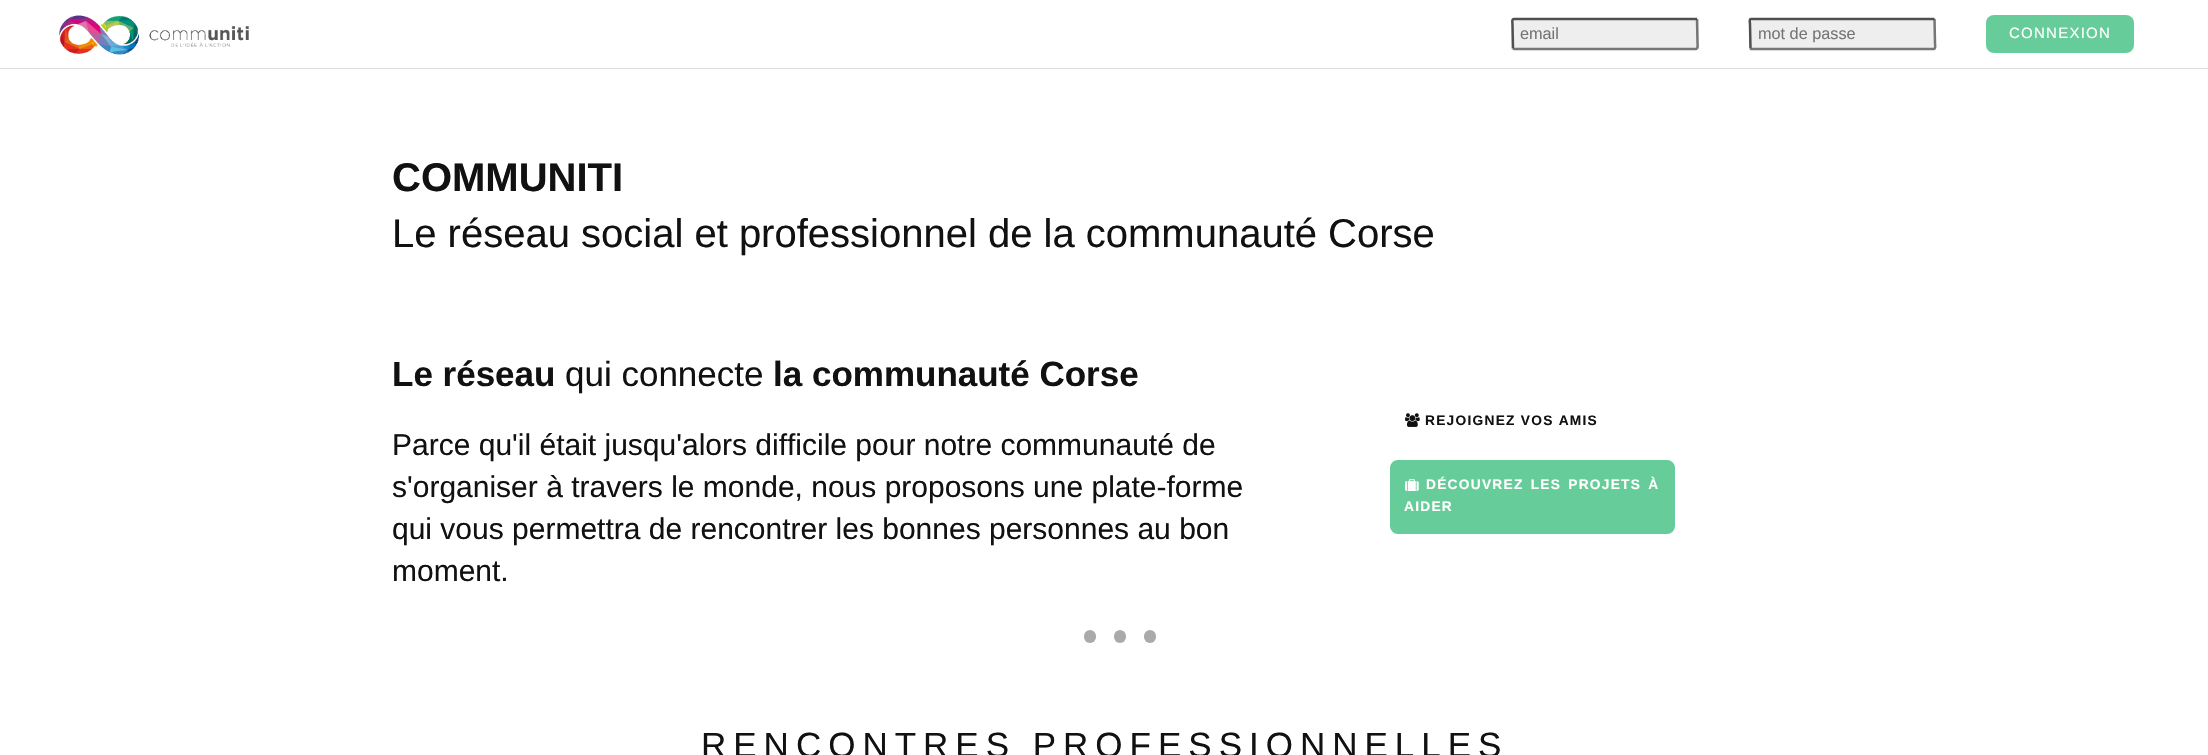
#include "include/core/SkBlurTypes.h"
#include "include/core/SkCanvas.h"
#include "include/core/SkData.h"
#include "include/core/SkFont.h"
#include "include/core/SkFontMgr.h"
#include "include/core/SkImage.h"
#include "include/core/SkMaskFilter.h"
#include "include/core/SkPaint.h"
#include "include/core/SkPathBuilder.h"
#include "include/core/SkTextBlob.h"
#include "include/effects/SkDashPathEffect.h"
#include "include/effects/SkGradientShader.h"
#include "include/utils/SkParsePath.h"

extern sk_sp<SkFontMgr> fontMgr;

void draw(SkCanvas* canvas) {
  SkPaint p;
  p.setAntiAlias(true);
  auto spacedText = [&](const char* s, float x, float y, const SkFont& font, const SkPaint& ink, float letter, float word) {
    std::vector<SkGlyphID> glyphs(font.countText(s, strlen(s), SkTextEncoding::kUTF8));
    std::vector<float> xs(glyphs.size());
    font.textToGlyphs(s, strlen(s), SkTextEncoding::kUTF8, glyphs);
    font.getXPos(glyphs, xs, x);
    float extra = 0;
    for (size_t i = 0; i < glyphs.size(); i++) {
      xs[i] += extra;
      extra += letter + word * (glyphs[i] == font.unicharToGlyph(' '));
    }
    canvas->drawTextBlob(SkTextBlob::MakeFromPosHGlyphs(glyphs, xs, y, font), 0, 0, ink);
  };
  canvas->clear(SK_ColorWHITE);
  canvas->drawImageRect(SkImages::DeferredFromEncodedData(SkData::MakeFromFileName("images/1.png")), SkRect::MakeLTRB(59, 15, 249, 55), SkSamplingOptions());
  p.setColor(SkColorSetRGB(221, 221, 221));
  canvas->drawRect(SkRect::MakeLTRB(0, 68, 2208, 69), p);
  p.setColor(SkColorSetRGB(238, 238, 238));
  canvas->drawRoundRect(SkRect::MakeLTRB(1511, 18, 1699, 50), 2.5f, 2.5f, p);
  p.setStyle(SkPaint::kStroke_Style);
  p.setStrokeWidth(2.5f);
  p.setColor(SkColorSetRGB(118, 118, 118));
  canvas->drawPath(SkPathBuilder().moveTo(1697, 19).lineTo(1697.5f, 43).cubicTo(1697.5f, 45, 1698.5f, 48.5f, 1696, 49).lineTo(1514, 49).lineTo(1513, 48.5f).detach(), p);
  p.setColor(SkColorSetRGB(79, 79, 79));
  canvas->drawPath(SkPathBuilder().moveTo(1513, 48.5f).lineTo(1512.5f, 24.5f).cubicTo(1512.5f, 22.5f, 1511.5f, 19, 1514, 19).lineTo(1696, 19).lineTo(1697, 19).detach(), p);
  p.setStyle(SkPaint::kFill_Style);
  p.setColor(SkColorSetRGB(238, 238, 238));
  canvas->drawRoundRect(SkRect::MakeLTRB(1749, 18, 1936, 50), 2.5f, 2.5f, p);
  p.setStyle(SkPaint::kStroke_Style);
  p.setColor(SkColorSetRGB(118, 118, 118));
  canvas->drawPath(SkPathBuilder().moveTo(1934.5f, 19).lineTo(1935, 43).cubicTo(1935, 45, 1936, 48.5f, 1934, 49).lineTo(1751, 49).lineTo(1750.5f, 48.5f).detach(), p);
  p.setColor(SkColorSetRGB(79, 79, 79));
  canvas->drawPath(SkPathBuilder().moveTo(1750.5f, 48.5f).lineTo(1750, 24.5f).cubicTo(1750, 22.5f, 1749, 19, 1751, 19).lineTo(1934, 19).lineTo(1934.5f, 19).detach(), p);
  p.setStyle(SkPaint::kFill_Style);
  p.setColor(SkColorSetRGB(102, 204, 153));
  canvas->drawRoundRect(SkRect::MakeLTRB(1986, 15, 2134, 53), 8, 8, p);
  canvas->drawImageRect(SkImages::DeferredFromEncodedData(SkData::MakeFromFileName("images/2.png")), SkRect::MakeLTRB(1405, 413, 1420, 427), SkSamplingOptions());
  canvas->drawRoundRect(SkRect::MakeLTRB(1391.5f, 461.5f, 1673.5f, 532.5f), 6.5f, 6.5f, p);
  p.setStyle(SkPaint::kStroke_Style);
  p.setStrokeWidth(3);
  canvas->drawRoundRect(SkRect::MakeLTRB(1391.5f, 461.5f, 1673.5f, 532.5f), 6.5f, 6.5f, p);
  canvas->drawImageRect(SkImages::DeferredFromEncodedData(SkData::MakeFromFileName("images/3.png")), SkRect::MakeLTRB(1405, 479, 1419, 491), SkSamplingOptions());
  p.setStyle(SkPaint::kFill_Style);
  p.setColor(SkColorSetRGB(170, 170, 170));
  canvas->drawRoundRect(SkRect::MakeLTRB(1084, 630, 1096, 643), 6, 6, p);
  canvas->drawRoundRect(SkRect::MakeLTRB(1114, 630, 1126, 643), 6, 6, p);
  canvas->drawRoundRect(SkRect::MakeLTRB(1144, 630, 1156, 643), 6, 6, p);
  SkFont font1(fontMgr->matchFamilyStyle("Liberation Sans", SkFontStyle::Normal()), 16.25f);
  font1.setSubpixel(true);
  p.setColor(SkColorSetRGB(117, 117, 117));
  canvas->drawString("email", 1520, 39, font1, p);
  canvas->drawString("mot de passe", 1758, 39, font1, p);
  SkFont font2(fontMgr->matchFamilyStyle("Liberation Sans", SkFontStyle::Normal()), 15);
  font2.setSubpixel(true);
  p.setColor(SK_ColorWHITE);
  spacedText("CONNEXION", 2009, 38, font2, p, 1.25f, 0);
  SkFont font3(fontMgr->matchFamilyStyle("Liberation Sans", SkFontStyle::Bold()), 40);
  font3.setSubpixel(true);
  p.setColor(SkColorSetRGB(17, 17, 17));
  canvas->drawString("COMMUNITI", 392, 191, font3, p);
  SkFont font4(fontMgr->matchFamilyStyle("Liberation Sans", SkFontStyle::Normal()), 40);
  font4.setSubpixel(true);
  canvas->drawString("Le réseau social et professionnel de la communauté Corse", 392, 247, font4, p);
  SkFont font5(fontMgr->matchFamilyStyle("Liberation Sans", SkFontStyle::Bold()), 35);
  font5.setSubpixel(true);
  canvas->drawString("Le réseau", 392, 386, font5, p);
  SkFont font6(fontMgr->matchFamilyStyle("Liberation Sans", SkFontStyle::Normal()), 35);
  font6.setSubpixel(true);
  canvas->drawString("qui connecte", 565, 386, font6, p);
  canvas->drawString("la communauté Corse", 773, 386, font5, p);
  SkFont font7(fontMgr->matchFamilyStyle("Liberation Sans", SkFontStyle::Normal()), 30);
  font7.setSubpixel(true);
  canvas->drawString("Parce qu'il était jusqu'alors difficile pour notre communauté de", 392, 455, font7, p);
  canvas->drawString("s'organiser à travers le monde, nous proposons une plate-forme", 392, 497, font7, p);
  canvas->drawString("qui vous permettra de rencontrer les bonnes personnes au bon", 392, 539, font7, p);
  canvas->drawString("moment.", 392, 581, font7, p);
  SkFont font8(fontMgr->matchFamilyStyle("Liberation Sans", SkFontStyle::Bold()), 13.75f);
  font8.setSubpixel(true);
  spacedText("REJOIGNEZ VOS AMIS", 1425, 425, font8, p, 1.25f, 0);
  p.setColor(SK_ColorWHITE);
  spacedText("DÉCOUVREZ LES PROJETS À", 1426, 489, font8, p, 1.25f, 2);
  spacedText("AIDER", 1404, 511, font8, p, 1.25f, 0);
  p.setColor(SkColorSetRGB(17, 17, 17));
  spacedText("RENCONTRES PROFESSIONNELLES", 701, 757, font6, p, 7, 0);
}
